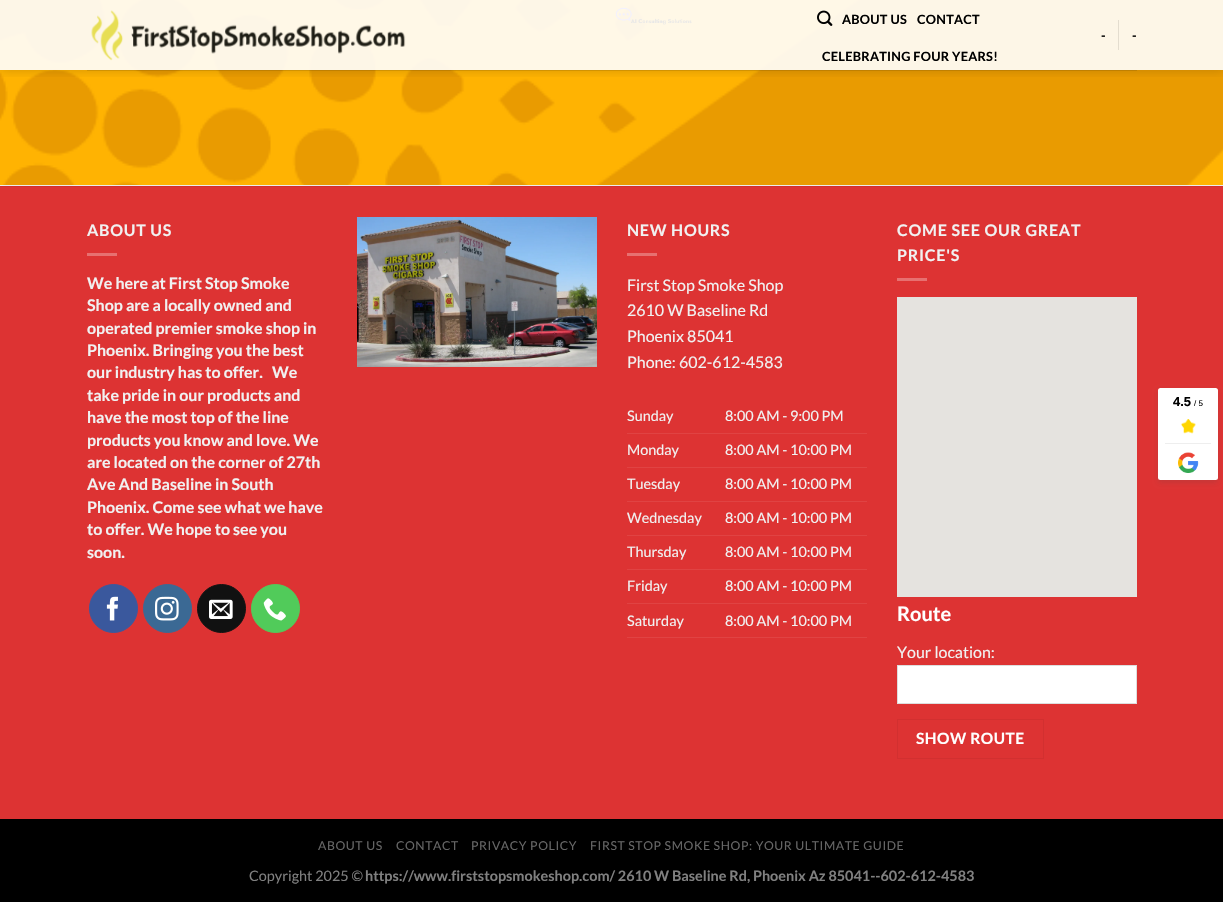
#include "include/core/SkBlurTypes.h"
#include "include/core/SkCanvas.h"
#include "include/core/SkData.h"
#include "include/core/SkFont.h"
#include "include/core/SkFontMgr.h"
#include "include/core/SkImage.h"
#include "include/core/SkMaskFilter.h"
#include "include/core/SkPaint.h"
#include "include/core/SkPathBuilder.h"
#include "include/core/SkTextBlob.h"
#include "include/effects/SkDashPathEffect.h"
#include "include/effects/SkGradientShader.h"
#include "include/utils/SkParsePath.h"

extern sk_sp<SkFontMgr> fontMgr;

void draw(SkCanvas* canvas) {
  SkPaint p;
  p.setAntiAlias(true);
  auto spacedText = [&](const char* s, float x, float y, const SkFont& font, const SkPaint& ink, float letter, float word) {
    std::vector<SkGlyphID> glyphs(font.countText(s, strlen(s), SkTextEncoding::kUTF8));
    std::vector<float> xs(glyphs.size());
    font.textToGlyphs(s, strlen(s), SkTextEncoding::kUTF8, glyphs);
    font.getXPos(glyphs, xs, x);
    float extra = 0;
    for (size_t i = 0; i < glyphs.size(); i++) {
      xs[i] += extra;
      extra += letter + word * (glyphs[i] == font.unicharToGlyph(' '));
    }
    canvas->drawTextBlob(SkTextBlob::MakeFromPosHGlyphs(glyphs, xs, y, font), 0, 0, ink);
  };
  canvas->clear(SK_ColorWHITE);
  canvas->drawImageRect(SkImages::DeferredFromEncodedData(SkData::MakeFromFileName("images/1.png")), SkRect::MakeLTRB(0, 0, 1223, 185), SkSamplingOptions());
  p.setColor(SkColorSetRGB(236, 236, 236));
  canvas->drawRect(SkRect::MakeLTRB(0, 185, 1223, 186), p);
  canvas->drawImageRect(SkImages::DeferredFromEncodedData(SkData::MakeFromFileName("images/2.png")), SkRect::MakeLTRB(615, 7, 692, 25), SkSamplingOptions());
  canvas->save();
  canvas->clipRect(SkRect::MakeLTRB(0, 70, 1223, 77));
  p.setColor(SkColorSetARGB(38, 0, 0, 0));
  p.setMaskFilter(SkMaskFilter::MakeBlur(kNormal_SkBlurStyle, 5));
  canvas->drawRect(SkRect::MakeLTRB(1, 1, 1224, 71), p);
  p.setMaskFilter(nullptr);
  canvas->restore();
  p.setColor(SkColorSetARGB(230, 255, 255, 255));
  canvas->drawRect(SkRect::MakeLTRB(0, 0, 1223, 70), p);
  canvas->drawImageRect(SkImages::DeferredFromEncodedData(SkData::MakeFromFileName("images/3.png")), SkRect::MakeLTRB(91, 10, 406, 61), SkSamplingOptions());
  canvas->drawImageRect(SkImages::DeferredFromEncodedData(SkData::MakeFromFileName("images/4.png")), SkRect::MakeLTRB(817, 10, 833, 26), SkSamplingOptions());
  p.setColor(SkColorSetRGB(228, 221, 207));
  canvas->drawRect(SkRect::MakeLTRB(1118, 20, 1119, 50), p);
  p.setColor(SkColorSetARGB(26, 0, 0, 0));
  canvas->drawRect(SkRect::MakeLTRB(87, 70, 1137, 71), p);
  p.setColor(SkColorSetRGB(221, 51, 51));
  canvas->drawRect(SkRect::MakeLTRB(0, 187, 1223, 819), p);
  p.setColor(SkColorSetRGB(210, 48, 48));
  canvas->drawRect(SkRect::MakeLTRB(0, 186, 1223, 187), p);
  p.setColor(SkColorSetRGB(231, 112, 112));
  canvas->drawRect(SkRect::MakeLTRB(87, 253, 117, 256), p);
  p.setColor(SkColorSetRGB(58, 88, 157));
  canvas->drawCircle(113.5f, 608.5f, 24, p);
  p.setStyle(SkPaint::kStroke_Style);
  p.setStrokeWidth(1);
  canvas->drawCircle(113.5f, 608.5f, 24, p);
  canvas->drawImageRect(SkImages::DeferredFromEncodedData(SkData::MakeFromFileName("images/5.png")), SkRect::MakeLTRB(106, 596, 118, 621), SkSamplingOptions());
  p.setStyle(SkPaint::kFill_Style);
  p.setColor(SkColorSetRGB(59, 105, 148));
  canvas->drawCircle(167.5f, 608.5f, 24, p);
  p.setStyle(SkPaint::kStroke_Style);
  canvas->drawCircle(167.5f, 608.5f, 24, p);
  canvas->drawImageRect(SkImages::DeferredFromEncodedData(SkData::MakeFromFileName("images/6.png")), SkRect::MakeLTRB(155, 596, 179, 621), SkSamplingOptions());
  p.setStyle(SkPaint::kFill_Style);
  p.setColor(SkColorSetRGB(17, 17, 17));
  canvas->drawCircle(221.5f, 608.5f, 24, p);
  p.setStyle(SkPaint::kStroke_Style);
  canvas->drawCircle(221.5f, 608.5f, 24, p);
  canvas->drawImageRect(SkImages::DeferredFromEncodedData(SkData::MakeFromFileName("images/7.png")), SkRect::MakeLTRB(209, 599, 233, 619), SkSamplingOptions());
  p.setStyle(SkPaint::kFill_Style);
  p.setColor(SkColorSetRGB(81, 203, 90));
  canvas->drawCircle(275.5f, 608.5f, 24, p);
  p.setStyle(SkPaint::kStroke_Style);
  canvas->drawCircle(275.5f, 608.5f, 24, p);
  canvas->drawImageRect(SkImages::DeferredFromEncodedData(SkData::MakeFromFileName("images/8.png")), SkRect::MakeLTRB(263, 598, 286, 621), SkSamplingOptions());
  canvas->drawImageRect(SkImages::DeferredFromEncodedData(SkData::MakeFromFileName("images/9.png")), SkRect::MakeLTRB(357, 217, 597, 367), SkSamplingOptions());
  p.setStyle(SkPaint::kFill_Style);
  p.setColor(SkColorSetRGB(231, 112, 112));
  canvas->drawRect(SkRect::MakeLTRB(627, 253, 657, 256), p);
  p.setColor(SkColorSetRGB(224, 67, 67));
  canvas->drawRect(SkRect::MakeLTRB(627, 433, 867, 434), p);
  canvas->drawRect(SkRect::MakeLTRB(627, 467, 867, 468), p);
  canvas->drawRect(SkRect::MakeLTRB(627, 501, 867, 502), p);
  canvas->drawRect(SkRect::MakeLTRB(627, 535, 867, 536), p);
  canvas->drawRect(SkRect::MakeLTRB(627, 569, 867, 570), p);
  canvas->drawRect(SkRect::MakeLTRB(627, 603, 867, 604), p);
  canvas->drawRect(SkRect::MakeLTRB(627, 637, 867, 638), p);
  p.setColor(SkColorSetRGB(231, 112, 112));
  canvas->drawRect(SkRect::MakeLTRB(897, 278, 927, 281), p);
  p.setColor(SkColorSetRGB(229, 227, 223));
  canvas->drawRect(SkRect::MakeLTRB(897, 297, 1137, 597), p);
  p.setColor(SK_ColorWHITE);
  canvas->drawRect(SkRect::MakeLTRB(897.5f, 665.5f, 1136.5f, 703.5f), p);
  p.setStyle(SkPaint::kStroke_Style);
  p.setColor(SkColorSetRGB(221, 221, 221));
  canvas->drawRect(SkRect::MakeLTRB(897.5f, 665.5f, 1136.5f, 703.5f), p);
  p.setColor(SkColorSetRGB(210, 48, 48));
  canvas->drawRect(SkRect::MakeLTRB(897.5f, 719.5f, 1043.5f, 758.5f), p);
  p.setStyle(SkPaint::kFill_Style);
  p.setColor(SK_ColorBLACK);
  canvas->drawRect(SkRect::MakeLTRB(0, 819, 1223, 902), p);
  p.setColor(SkColorSetARGB(41, 72, 72, 72));
  p.setMaskFilter(SkMaskFilter::MakeBlur(kNormal_SkBlurStyle, 2.5f));
  canvas->drawRoundRect(SkRect::MakeLTRB(1158, 390, 1218, 483), 2.5f, 2.5f, p);
  p.setMaskFilter(nullptr);
  p.setColor(SK_ColorWHITE);
  canvas->drawRoundRect(SkRect::MakeLTRB(1158, 388, 1218, 480), 2.5f, 2.5f, p);
  canvas->drawImageRect(SkImages::DeferredFromEncodedData(SkData::MakeFromFileName("images/10.png")), SkRect::MakeLTRB(1181, 419, 1196, 434), SkSamplingOptions());
  p.setColor(SkColorSetRGB(238, 238, 238));
  canvas->drawRect(SkRect::MakeLTRB(1165, 443, 1211, 444), p);
  canvas->drawImageRect(SkImages::DeferredFromEncodedData(SkData::MakeFromFileName("images/11.png")), SkRect::MakeLTRB(1178, 452, 1199, 473), SkSamplingOptions());
  SkFont font1(fontMgr->matchFamilyStyle("Lato", SkFontStyle::Bold()), 12.75f);
  font1.setSubpixel(true);
  p.setColor(SK_ColorBLACK);
  spacedText("ABOUT US", 842, 24, font1, p, 0.25f, 0);
  spacedText("CONTACT", 917, 24, font1, p, 0.25f, 0);
  spacedText("CELEBRATING FOUR YEARS!", 822, 61, font1, p, 0.25f, 0);
  spacedText("-", 1101, 40, font1, p, 0.25f, 0);
  spacedText("-", 1132, 40, font1, p, 0.25f, 0);
  SkFont font2(fontMgr->matchFamilyStyle("Lato", SkFontStyle::Bold()), 16);
  font2.setSubpixel(true);
  p.setColor(SkColorSetRGB(241, 241, 241));
  spacedText("ABOUT US", 87, 236, font2, p, 0.75f, 0);
  canvas->drawString("We here at First Stop Smoke", 87, 289, font2, p);
  canvas->drawString("Shop are a locally owned and", 87, 311, font2, p);
  canvas->drawString("operated premier smoke shop in", 87, 334, font2, p);
  canvas->drawString("Phoenix. Bringing you the best", 87, 356, font2, p);
  canvas->drawString("our industry has to offer.   We", 87, 378, font2, p);
  canvas->drawString("take pride in our products and", 87, 401, font2, p);
  canvas->drawString("have the most top of the line", 87, 423, font2, p);
  canvas->drawString("products you know and love. We", 87, 446, font2, p);
  canvas->drawString("are located on the corner of 27th", 87, 468, font2, p);
  canvas->drawString("Ave And Baseline in South", 87, 490, font2, p);
  canvas->drawString("Phoenix. Come see what we have", 87, 513, font2, p);
  canvas->drawString("to offer. We hope to see you", 87, 535, font2, p);
  canvas->drawString("soon.", 87, 558, font2, p);
  spacedText("NEW HOURS", 627, 236, font2, p, 0.75f, 0);
  SkFont font3(fontMgr->matchFamilyStyle("Lato", SkFontStyle::Normal()), 16);
  font3.setSubpixel(true);
  canvas->drawString("First Stop Smoke Shop", 627, 291, font3, p);
  canvas->drawString("2610 W Baseline Rd", 627, 316, font3, p);
  canvas->drawString("Phoenix 85041", 627, 342, font3, p);
  canvas->drawString("Phone: 602-612-4583", 627, 368, font3, p);
  SkFont font4(fontMgr->matchFamilyStyle("Lato", SkFontStyle::Normal()), 14.4f);
  font4.setSubpixel(true);
  canvas->drawString("Sunday", 627, 421, font4, p);
  canvas->drawString("8:00 AM - 9:00 PM", 725, 421, font4, p);
  canvas->drawString("Monday", 627, 455, font4, p);
  canvas->drawString("8:00 AM - 10:00 PM", 725, 455, font4, p);
  canvas->drawString("Tuesday", 627, 489, font4, p);
  canvas->drawString("8:00 AM - 10:00 PM", 725, 489, font4, p);
  canvas->drawString("Wednesday", 627, 523, font4, p);
  canvas->drawString("8:00 AM - 10:00 PM", 725, 523, font4, p);
  canvas->drawString("Thursday", 627, 557, font4, p);
  canvas->drawString("8:00 AM - 10:00 PM", 725, 557, font4, p);
  canvas->drawString("Friday", 627, 591, font4, p);
  canvas->drawString("8:00 AM - 10:00 PM", 725, 591, font4, p);
  canvas->drawString("Saturday", 627, 626, font4, p);
  canvas->drawString("8:00 AM - 10:00 PM", 725, 626, font4, p);
  spacedText("COME SEE OUR GREAT", 897, 236, font2, p, 0.75f, 0);
  spacedText("PRICE'S", 897, 261, font2, p, 0.75f, 0);
  SkFont font5(fontMgr->matchFamilyStyle("Lato", SkFontStyle::Bold()), 20);
  font5.setSubpixel(true);
  p.setColor(SK_ColorWHITE);
  canvas->drawString("Route", 897, 621, font5, p);
  p.setColor(SkColorSetRGB(241, 241, 241));
  canvas->drawString("Your location:", 897, 658, font3, p);
  SkFont font6(fontMgr->matchFamilyStyle("Lato", SkFontStyle::Bold()), 15.5f);
  font6.setSubpixel(true);
  p.setColor(SK_ColorWHITE);
  spacedText("SHOW ROUTE", 916, 744, font6, p, 0.5f, 0);
  SkFont font7(fontMgr->matchFamilyStyle("Lato", SkFontStyle::Normal()), 12.25f);
  font7.setSubpixel(true);
  p.setColor(SkColorSetRGB(102, 102, 102));
  spacedText("ABOUT US", 318, 850, font7, p, 0.6f, 0);
  spacedText("CONTACT", 396, 850, font7, p, 0.6f, 0);
  spacedText("PRIVACY POLICY", 471, 850, font7, p, 0.6f, 0);
  spacedText("FIRST STOP SMOKE SHOP: YOUR ULTIMATE GUIDE", 590, 850, font7, p, 0.6f, 0);
  p.setColor(SkColorSetRGB(128, 128, 128));
  canvas->drawString("Copyright 2025 ©", 249, 881, font4, p);
  SkFont font8(fontMgr->matchFamilyStyle("Lato", SkFontStyle::Bold()), 14.4f);
  font8.setSubpixel(true);
  canvas->drawString("https://www.firststopsmokeshop.com/ 2610 W Baseline Rd, Phoenix Az 85041--602-612-4583", 365, 881, font8, p);
  SkFont font9(fontMgr->matchFamilyStyle("Liberation Sans", SkFontStyle::Bold()), 13);
  font9.setSubpixel(true);
  p.setColor(SK_ColorBLACK);
  canvas->drawString("4.5", 1173, 406, font9, p);
  SkFont font10(fontMgr->matchFamilyStyle("Liberation Sans", SkFontStyle::Normal()), 8);
  font10.setSubpixel(true);
  canvas->drawString("/ 5", 1194, 406, font10, p);
}
